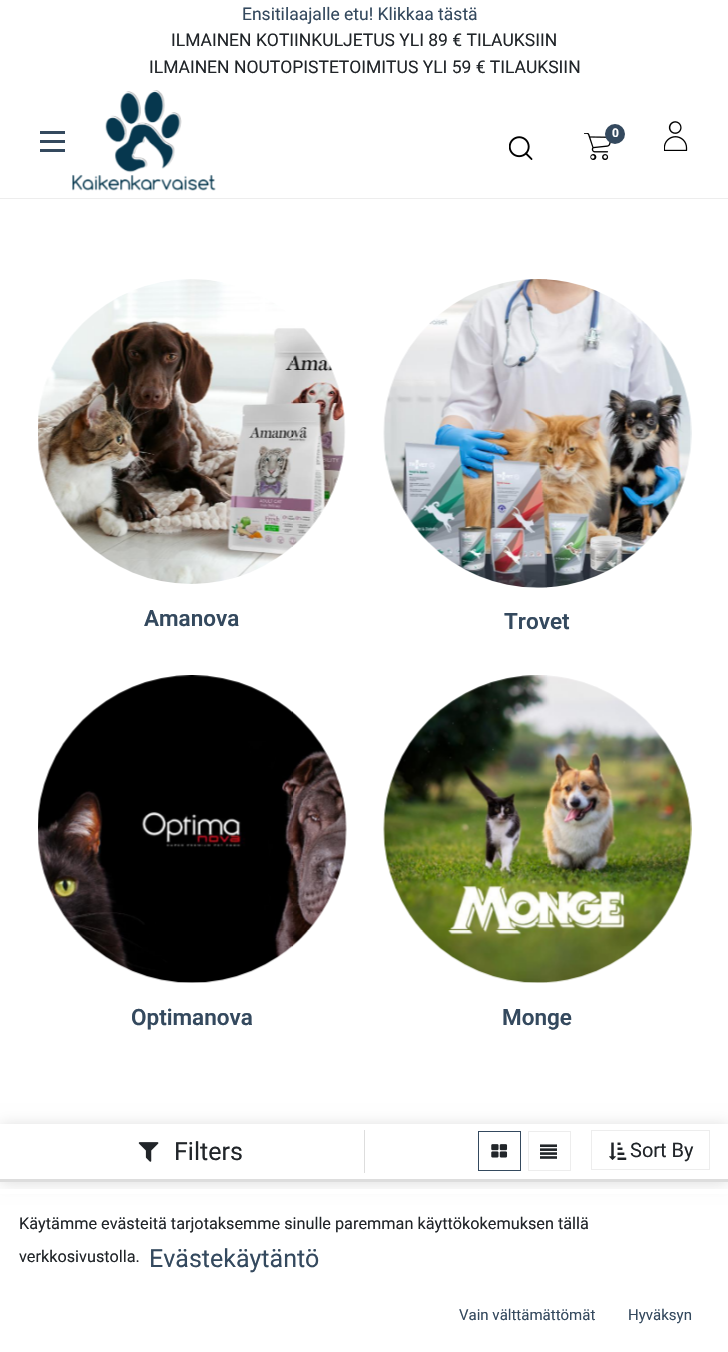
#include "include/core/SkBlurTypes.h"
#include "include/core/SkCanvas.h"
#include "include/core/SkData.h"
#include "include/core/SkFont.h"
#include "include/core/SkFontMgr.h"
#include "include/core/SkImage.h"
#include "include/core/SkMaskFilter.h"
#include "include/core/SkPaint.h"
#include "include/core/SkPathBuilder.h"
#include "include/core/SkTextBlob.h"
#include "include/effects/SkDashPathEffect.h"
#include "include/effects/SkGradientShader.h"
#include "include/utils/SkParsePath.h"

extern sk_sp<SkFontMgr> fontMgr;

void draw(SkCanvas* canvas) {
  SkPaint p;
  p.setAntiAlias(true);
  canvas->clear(SK_ColorWHITE);
  p.setColor(SkColorSetRGB(52, 73, 94));
  canvas->drawRect(SkRect::MakeLTRB(40, 131, 65, 134), p);
  canvas->drawRect(SkRect::MakeLTRB(40, 140, 65, 143), p);
  canvas->drawRect(SkRect::MakeLTRB(40, 149, 65, 152), p);
  canvas->drawImageRect(SkImages::DeferredFromEncodedData(SkData::MakeFromFileName("images/1.png")), SkRect::MakeLTRB(72, 90, 216, 191), SkSamplingOptions());
  canvas->drawImageRect(SkImages::DeferredFromEncodedData(SkData::MakeFromFileName("images/2.png")), SkRect::MakeLTRB(584, 133, 611, 160), SkSamplingOptions());
  canvas->drawCircle(615, 134, 10, p);
  canvas->drawImageRect(SkImages::DeferredFromEncodedData(SkData::MakeFromFileName("images/3.png")), SkRect::MakeLTRB(664, 121, 688, 151), SkSamplingOptions());
  canvas->drawImageRect(SkImages::DeferredFromEncodedData(SkData::MakeFromFileName("images/4.png")), SkRect::MakeLTRB(509, 136, 533, 160), SkSamplingOptions());
  p.setColor(SkColorSetRGB(237, 237, 237));
  canvas->drawRect(SkRect::MakeLTRB(0, 198, 728, 199), p);
  canvas->drawImageRect(SkImages::DeferredFromEncodedData(SkData::MakeFromFileName("images/5.png")), SkRect::MakeLTRB(38, 279, 346, 584), SkSamplingOptions());
  canvas->drawImageRect(SkImages::DeferredFromEncodedData(SkData::MakeFromFileName("images/6.png")), SkRect::MakeLTRB(383, 279, 692, 588), SkSamplingOptions());
  canvas->drawImageRect(SkImages::DeferredFromEncodedData(SkData::MakeFromFileName("images/7.png")), SkRect::MakeLTRB(38, 675, 347, 983), SkSamplingOptions());
  canvas->drawImageRect(SkImages::DeferredFromEncodedData(SkData::MakeFromFileName("images/8.png")), SkRect::MakeLTRB(383, 675, 692, 983), SkSamplingOptions());
  canvas->save();
  canvas->clipPath(SkPathBuilder(SkPathFillType::kEvenOdd).moveTo(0, 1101).lineTo(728, 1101).lineTo(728, 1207).lineTo(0, 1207).close().moveTo(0, 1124).lineTo(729, 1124).lineTo(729, 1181).lineTo(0, 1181).close().detach(), true);
  p.setColor(SkColorSetRGB(221, 221, 221));
  p.setMaskFilter(SkMaskFilter::MakeBlur(kNormal_SkBlurStyle, 7.5f));
  canvas->drawRect(SkRect::MakeLTRB(0, 1125, 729, 1183), p);
  p.setMaskFilter(nullptr);
  canvas->restore();
  canvas->drawRect(SkRect::MakeLTRB(0, 1179, 728, 1182), p);
  canvas->drawRect(SkRect::MakeLTRB(364, 1130, 365, 1173), p);
  canvas->drawImageRect(SkImages::DeferredFromEncodedData(SkData::MakeFromFileName("images/9.png")), SkRect::MakeLTRB(138, 1142, 159, 1162), SkSamplingOptions());
  p.setStyle(SkPaint::kStroke_Style);
  p.setStrokeWidth(1);
  p.setColor(SkColorSetRGB(52, 73, 94));
  canvas->drawRect(SkRect::MakeLTRB(478.5f, 1131.5f, 520.5f, 1170.5f), p);
  canvas->drawImageRect(SkImages::DeferredFromEncodedData(SkData::MakeFromFileName("images/10.png")), SkRect::MakeLTRB(491, 1144, 508, 1158), SkSamplingOptions());
  p.setColor(SkColorSetRGB(237, 237, 237));
  canvas->drawRect(SkRect::MakeLTRB(528.5f, 1131.5f, 570.5f, 1170.5f), p);
  canvas->drawImageRect(SkImages::DeferredFromEncodedData(SkData::MakeFromFileName("images/11.png")), SkRect::MakeLTRB(540, 1144, 557, 1159), SkSamplingOptions());
  canvas->drawRect(SkRect::MakeLTRB(591.5f, 1130.5f, 709.5f, 1169.5f), p);
  canvas->drawImageRect(SkImages::DeferredFromEncodedData(SkData::MakeFromFileName("images/12.png")), SkRect::MakeLTRB(609, 1142, 627, 1160), SkSamplingOptions());
  p.setStyle(SkPaint::kFill_Style);
  p.setColor(SK_ColorWHITE);
  canvas->drawRect(SkRect::MakeLTRB(0, 1189, 728, 1194), p);
  SkFont font1(fontMgr->matchFamilyStyle("Roboto", SkFontStyle::Normal()), 17.5f);
  font1.setSubpixel(true);
  p.setColor(SkColorSetRGB(52, 73, 94));
  canvas->drawString("Ensitilaajalle etu! Klikkaa tästä", 242, 20, font1, p);
  p.setColor(SkColorSetRGB(33, 37, 41));
  canvas->drawString("ILMAINEN KOTIINKULJETUS YLI 89 € TILAUKSIIN", 171, 46, font1, p);
  canvas->drawString("ILMAINEN NOUTOPISTETOIMITUS YLI 59 € TILAUKSIIN", 149, 73, font1, p);
  SkFont font2(fontMgr->matchFamilyStyle("Roboto", SkFontStyle::Bold()), 12);
  font2.setSubpixel(true);
  p.setColor(SK_ColorWHITE);
  canvas->drawString("0", 612, 137, font2, p);
  SkFont font3(fontMgr->matchFamilyStyle("Roboto", SkFontStyle(600, SkFontStyle::kNormal_Width, SkFontStyle::kUpright_Slant)), 22.5f);
  font3.setSubpixel(true);
  p.setColor(SkColorSetRGB(52, 73, 94));
  canvas->drawString("Amanova", 144, 626, font3, p);
  canvas->drawString("Trovet", 504, 629, font3, p);
  canvas->drawString("Optimanova", 131, 1025, font3, p);
  canvas->drawString("Monge", 502, 1025, font3, p);
  SkFont font4(fontMgr->matchFamilyStyle("Roboto", SkFontStyle::Normal()), 25);
  font4.setSubpixel(true);
  p.setColor(SkColorSetRGB(33, 37, 41));
  canvas->drawString("Filters", 174, 1160, font4, p);
  SkFont font5(fontMgr->matchFamilyStyle("Roboto", SkFontStyle::Normal()), 20);
  font5.setSubpixel(true);
  canvas->drawString("Sort By", 630, 1157, font5, p);
  SkFont font6(fontMgr->matchFamilyStyle("Roboto", SkFontStyle::Normal()), 16.25f);
  font6.setSubpixel(true);
  canvas->drawString("Käytämme evästeitä tarjotaksemme sinulle paremman käyttökokemuksen tällä", 19, 1229, font6, p);
  canvas->drawString("verkkosivustolla.", 19, 1262, font6, p);
  p.setColor(SkColorSetRGB(52, 73, 94));
  canvas->drawString("Evästekäytäntö", 149, 1267, font4, p);
  SkFont font7(fontMgr->matchFamilyStyle("Roboto", SkFontStyle::Normal()), 15);
  font7.setSubpixel(true);
  canvas->drawString("Vain välttämättömät", 459, 1320, font7, p);
  canvas->drawString("Hyväksyn", 628, 1320, font7, p);
}
